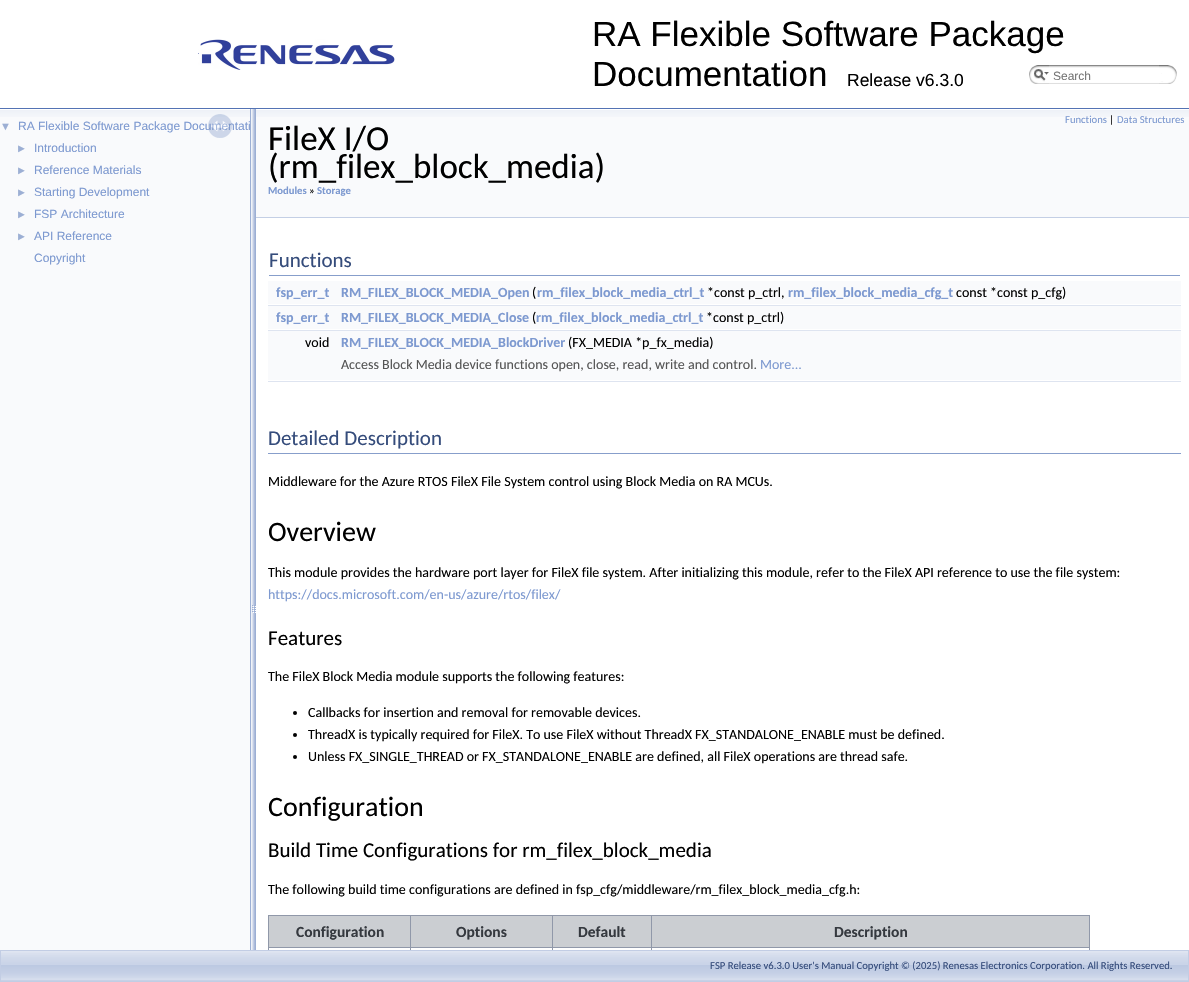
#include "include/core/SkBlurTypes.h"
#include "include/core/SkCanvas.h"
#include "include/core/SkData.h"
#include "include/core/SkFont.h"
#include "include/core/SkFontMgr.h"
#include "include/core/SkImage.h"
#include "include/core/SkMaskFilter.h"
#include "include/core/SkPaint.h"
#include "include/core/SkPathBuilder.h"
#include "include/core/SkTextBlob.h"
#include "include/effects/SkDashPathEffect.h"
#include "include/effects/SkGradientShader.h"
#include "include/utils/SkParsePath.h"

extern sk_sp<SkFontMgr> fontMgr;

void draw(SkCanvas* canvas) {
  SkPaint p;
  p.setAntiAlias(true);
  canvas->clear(SK_ColorWHITE);
  p.setColor(SkColorSetRGB(83, 115, 180));
  canvas->drawRect(SkRect::MakeLTRB(0, 108, 1189, 109), p);
  canvas->drawImageRect(SkImages::DeferredFromEncodedData(SkData::MakeFromFileName("images/1.png")), SkRect::MakeLTRB(198, 39, 395, 70), SkSamplingOptions());
  canvas->drawImageRect(SkImages::DeferredFromEncodedData(SkData::MakeFromFileName("images/2.png")), SkRect::MakeLTRB(1029, 65, 1049, 84), SkSamplingOptions());
  canvas->drawImageRect(SkImages::DeferredFromEncodedData(SkData::MakeFromFileName("images/3.png")), SkRect::MakeLTRB(1034, 69, 1049, 81), SkSamplingOptions());
  canvas->drawImageRect(SkImages::DeferredFromEncodedData(SkData::MakeFromFileName("images/4.png")), SkRect::MakeLTRB(1049, 65, 1159, 84), SkSamplingOptions());
  canvas->drawImageRect(SkImages::DeferredFromEncodedData(SkData::MakeFromFileName("images/5.png")), SkRect::MakeLTRB(1159, 65, 1177, 84), SkSamplingOptions());
  p.setColor(SkColorSetRGB(249, 250, 252));
  canvas->drawRect(SkRect::MakeLTRB(0, 117, 250, 950), p);
  canvas->drawImageRect(SkImages::DeferredFromEncodedData(SkData::MakeFromFileName("images/6.png")), SkRect::MakeLTRB(0, 109, 250, 117), SkSamplingOptions());
  canvas->drawImageRect(SkImages::DeferredFromEncodedData(SkData::MakeFromFileName("images/8.png")), SkRect::MakeLTRB(250, 109, 256, 950), SkSamplingOptions());
  canvas->drawRect(SkRect::MakeLTRB(256, 117, 1189, 217), p);
  canvas->drawImageRect(SkImages::DeferredFromEncodedData(SkData::MakeFromFileName("images/9.png")), SkRect::MakeLTRB(256, 109, 1189, 117), SkSamplingOptions());
  p.setColor(SkColorSetRGB(196, 207, 229));
  canvas->drawRect(SkRect::MakeLTRB(256, 217, 1189, 218), p);
  p.setColor(SkColorSetRGB(135, 158, 203));
  canvas->drawRect(SkRect::MakeLTRB(269, 275, 1180, 276), p);
  p.setColor(SkColorSetRGB(249, 250, 252));
  canvas->drawRect(SkRect::MakeLTRB(268, 281, 1181, 304), p);
  p.setColor(SkColorSetRGB(222, 228, 240));
  canvas->drawRect(SkRect::MakeLTRB(268, 305, 1181, 306), p);
  p.setColor(SkColorSetRGB(249, 250, 252));
  canvas->drawRect(SkRect::MakeLTRB(268, 306, 1181, 329), p);
  p.setColor(SkColorSetRGB(222, 228, 240));
  canvas->drawRect(SkRect::MakeLTRB(268, 330, 1181, 331), p);
  p.setColor(SkColorSetRGB(249, 250, 252));
  canvas->drawRect(SkRect::MakeLTRB(268, 331, 1181, 354), p);
  canvas->drawRect(SkRect::MakeLTRB(268, 354, 1181, 380), p);
  p.setColor(SkColorSetRGB(222, 228, 240));
  canvas->drawRect(SkRect::MakeLTRB(268, 381, 1181, 382), p);
  p.setColor(SkColorSetRGB(135, 158, 203));
  canvas->drawRect(SkRect::MakeLTRB(268, 453, 1181, 454), p);
  p.setColor(SK_ColorBLACK);
  canvas->drawCircle(295, 713, 2, p);
  canvas->drawCircle(295, 735, 2, p);
  canvas->drawCircle(295, 757, 2, p);
  p.setColor(SkColorSetRGB(203, 206, 210));
  canvas->drawRect(SkRect::MakeLTRB(269, 916, 410, 947), p);
  p.setColor(SkColorSetRGB(144, 152, 169));
  canvas->drawRect(SkRect::MakeLTRB(651, 915, 1090, 916), p);
  canvas->drawRect(SkRect::MakeLTRB(651, 947, 1090, 948), p);
  canvas->drawRect(SkRect::MakeLTRB(651, 947, 652, 950), p);
  canvas->drawRect(SkRect::MakeLTRB(552, 947, 652, 948), p);
  canvas->drawRect(SkRect::MakeLTRB(651, 915, 652, 948), p);
  canvas->drawRect(SkRect::MakeLTRB(552, 915, 652, 916), p);
  canvas->drawRect(SkRect::MakeLTRB(552, 947, 553, 950), p);
  canvas->drawRect(SkRect::MakeLTRB(410, 947, 553, 948), p);
  canvas->drawRect(SkRect::MakeLTRB(552, 915, 553, 948), p);
  canvas->drawRect(SkRect::MakeLTRB(410, 915, 553, 916), p);
  canvas->drawRect(SkRect::MakeLTRB(410, 947, 411, 950), p);
  canvas->drawRect(SkRect::MakeLTRB(268, 947, 411, 948), p);
  canvas->drawRect(SkRect::MakeLTRB(410, 915, 411, 948), p);
  canvas->drawRect(SkRect::MakeLTRB(268, 915, 411, 916), p);
  canvas->drawRect(SkRect::MakeLTRB(268, 947, 269, 950), p);
  canvas->drawRect(SkRect::MakeLTRB(268, 915, 269, 948), p);
  p.setColor(SkColorSetRGB(203, 206, 210));
  canvas->drawRect(SkRect::MakeLTRB(411, 916, 552, 947), p);
  canvas->drawRect(SkRect::MakeLTRB(553, 916, 651, 947), p);
  canvas->drawRect(SkRect::MakeLTRB(652, 916, 1089, 947), p);
  p.setColor(SkColorSetRGB(144, 152, 169));
  canvas->drawRect(SkRect::MakeLTRB(1089, 947, 1090, 950), p);
  canvas->drawRect(SkRect::MakeLTRB(1089, 915, 1090, 948), p);
  canvas->drawImageRect(SkImages::DeferredFromEncodedData(SkData::MakeFromFileName("images/10.png")), SkRect::MakeLTRB(1, 951, 1188, 981), SkSamplingOptions());
  p.setStyle(SkPaint::kStroke_Style);
  p.setStrokeWidth(1);
  p.setColor(SkColorSetRGB(194, 205, 228));
  canvas->drawRect(SkRect::MakeLTRB(0.5f, 950.5f, 1188.5f, 981.5f), p);
  SkFont font1(fontMgr->matchFamilyStyle("Liberation Sans", SkFontStyle::Normal()), 35);
  font1.setSubpixel(true);
  p.setStyle(SkPaint::kFill_Style);
  p.setColor(SK_ColorBLACK);
  canvas->drawString("RA Flexible Software Package", 592, 46, font1, p);
  canvas->drawString("Documentation", 592, 86, font1, p);
  SkFont font2(fontMgr->matchFamilyStyle("Liberation Sans", SkFontStyle::Normal()), 17.5f);
  font2.setSubpixel(true);
  canvas->drawString("Release v6.3.0", 847, 86, font2, p);
  SkFont font3(fontMgr->matchFamilyStyle("Liberation Sans", SkFontStyle::Normal()), 12);
  font3.setSubpixel(true);
  p.setColor(SkColorSetRGB(117, 117, 117));
  canvas->drawString("Search", 1053, 80, font3, p);
  SkFont font4(fontMgr->matchFamilyStyle("Liberation Serif", SkFontStyle::Normal()), 11);
  font4.setSubpixel(true);
  p.setColor(SkColorSetRGB(156, 175, 212));
  canvas->drawString("▼", 0, 130, font4, p);
  p.setColor(SkColorSetRGB(125, 153, 208));
  canvas->drawString("RA Flexible Software Package Documentati", 18, 130, font3, p);
  canvas->drawImageRect(SkImages::DeferredFromEncodedData(SkData::MakeFromFileName("images/7.png")), SkRect::MakeLTRB(208, 114, 232, 138), SkSamplingOptions());
  p.setColor(SkColorSetRGB(156, 175, 212));
  canvas->drawString("►", 16, 152, font4, p);
  p.setColor(SkColorSetRGB(125, 153, 208));
  canvas->drawString("Introduction", 34, 152, font3, p);
  p.setColor(SkColorSetRGB(156, 175, 212));
  canvas->drawString("►", 16, 174, font4, p);
  p.setColor(SkColorSetRGB(125, 153, 208));
  canvas->drawString("Reference Materials", 34, 174, font3, p);
  p.setColor(SkColorSetRGB(156, 175, 212));
  canvas->drawString("►", 16, 196, font4, p);
  p.setColor(SkColorSetRGB(125, 153, 208));
  canvas->drawString("Starting Development", 34, 196, font3, p);
  p.setColor(SkColorSetRGB(156, 175, 212));
  canvas->drawString("►", 16, 218, font4, p);
  p.setColor(SkColorSetRGB(125, 153, 208));
  canvas->drawString("FSP Architecture", 34, 218, font3, p);
  p.setColor(SkColorSetRGB(156, 175, 212));
  canvas->drawString("►", 16, 240, font4, p);
  p.setColor(SkColorSetRGB(125, 153, 208));
  canvas->drawString("API Reference", 34, 240, font3, p);
  canvas->drawString("Copyright", 34, 262, font3, p);
  SkFont font5(fontMgr->matchFamilyStyle("Carlito", SkFontStyle::Normal()), 10.65f);
  font5.setSubpixel(true);
  canvas->drawString("Functions", 1065, 123, font5, p);
  p.setColor(SK_ColorBLACK);
  canvas->drawString("|", 1109, 123, font5, p);
  p.setColor(SkColorSetRGB(125, 153, 208));
  canvas->drawString("Data Structures", 1117, 123, font5, p);
  SkFont font6(fontMgr->matchFamilyStyle("Carlito", SkFontStyle::Normal()), 35);
  font6.setSubpixel(true);
  p.setColor(SK_ColorBLACK);
  canvas->drawString("FileX I/O", 268, 150, font6, p);
  canvas->drawString("(rm_filex_block_media)", 268, 178, font6, p);
  SkFont font7(fontMgr->matchFamilyStyle("Carlito", SkFontStyle::Bold()), 10.65f);
  font7.setSubpixel(true);
  p.setColor(SkColorSetRGB(125, 153, 208));
  canvas->drawString("Modules", 268, 194, font7, p);
  p.setColor(SK_ColorBLACK);
  canvas->drawString("»", 309, 194, font5, p);
  p.setColor(SkColorSetRGB(125, 153, 208));
  canvas->drawString("Storage", 317, 194, font7, p);
  SkFont font8(fontMgr->matchFamilyStyle("Carlito", SkFontStyle::Normal()), 21);
  font8.setSubpixel(true);
  p.setColor(SkColorSetRGB(53, 76, 123));
  canvas->drawString("Functions", 269, 267, font8, p);
  SkFont font9(fontMgr->matchFamilyStyle("Carlito", SkFontStyle::Bold()), 14);
  font9.setSubpixel(true);
  p.setColor(SkColorSetRGB(125, 153, 208));
  canvas->drawString("fsp_err_t", 276, 297, font9, p);
  canvas->drawString("RM_FILEX_BLOCK_MEDIA_Open", 341, 297, font9, p);
  SkFont font10(fontMgr->matchFamilyStyle("Carlito", SkFontStyle::Normal()), 14);
  font10.setSubpixel(true);
  p.setColor(SK_ColorBLACK);
  canvas->drawString("(", 532, 297, font10, p);
  p.setColor(SkColorSetRGB(125, 153, 208));
  canvas->drawString("rm_filex_block_media_ctrl_t", 537, 297, font9, p);
  p.setColor(SK_ColorBLACK);
  canvas->drawString("*const p_ctrl,", 707, 297, font10, p);
  p.setColor(SkColorSetRGB(125, 153, 208));
  canvas->drawString("rm_filex_block_media_cfg_t", 788, 297, font9, p);
  p.setColor(SK_ColorBLACK);
  canvas->drawString("const *const p_cfg)", 956, 297, font10, p);
  p.setColor(SkColorSetRGB(125, 153, 208));
  canvas->drawString("fsp_err_t", 276, 322, font9, p);
  canvas->drawString("RM_FILEX_BLOCK_MEDIA_Close", 341, 322, font9, p);
  p.setColor(SK_ColorBLACK);
  canvas->drawString("(", 532, 322, font10, p);
  p.setColor(SkColorSetRGB(125, 153, 208));
  canvas->drawString("rm_filex_block_media_ctrl_t", 536, 322, font9, p);
  p.setColor(SK_ColorBLACK);
  canvas->drawString("*const p_ctrl)", 706, 322, font10, p);
  canvas->drawString("void", 305, 347, font10, p);
  p.setColor(SkColorSetRGB(125, 153, 208));
  canvas->drawString("RM_FILEX_BLOCK_MEDIA_BlockDriver", 341, 347, font9, p);
  p.setColor(SK_ColorBLACK);
  canvas->drawString("(FX_MEDIA *p_fx_media)", 568, 347, font10, p);
  p.setColor(SkColorSetRGB(85, 85, 85));
  canvas->drawString("Access Block Media device functions open, close, read, write and control.", 341, 369, font10, p);
  p.setColor(SkColorSetRGB(125, 153, 208));
  canvas->drawString("More...", 760, 369, font10, p);
  p.setColor(SkColorSetRGB(53, 76, 123));
  canvas->drawString("Detailed Description", 268, 445, font8, p);
  p.setColor(SK_ColorBLACK);
  canvas->drawString("Middleware for the Azure RTOS FileX File System control using Block Media on RA MCUs.", 268, 486, font10, p);
  SkFont font11(fontMgr->matchFamilyStyle("Carlito", SkFontStyle::Normal()), 28);
  font11.setSubpixel(true);
  canvas->drawString("Overview", 268, 541, font11, p);
  canvas->drawString("This module provides the hardware port layer for FileX file system. After initializing this module, refer to the FileX API reference to use the file system:", 268, 577, font10, p);
  p.setColor(SkColorSetRGB(125, 153, 208));
  canvas->drawString("https://docs.microsoft.com/en-us/azure/rtos/filex/", 268, 599, font10, p);
  p.setColor(SK_ColorBLACK);
  canvas->drawString("Features", 268, 645, font8, p);
  canvas->drawString("The FileX Block Media module supports the following features:", 268, 681, font10, p);
  canvas->drawString("Callbacks for insertion and removal for removable devices.", 308, 717, font10, p);
  canvas->drawString("ThreadX is typically required for FileX. To use FileX without ThreadX FX_STANDALONE_ENABLE must be defined.", 308, 739, font10, p);
  canvas->drawString("Unless FX_SINGLE_THREAD or FX_STANDALONE_ENABLE are defined, all FileX operations are thread safe.", 308, 761, font10, p);
  canvas->drawString("Configuration", 268, 816, font11, p);
  canvas->drawString("Build Time Configurations for rm_filex_block_media", 268, 857, font8, p);
  canvas->drawString("The following build time configurations are defined in fsp_cfg/middleware/rm_filex_block_media_cfg.h:", 268, 894, font10, p);
  SkFont font12(fontMgr->matchFamilyStyle("Carlito", SkFontStyle::Bold()), 15.5f);
  font12.setSubpixel(true);
  p.setColor(SkColorSetRGB(53, 57, 63));
  canvas->drawString("Configuration", 296, 937, font12, p);
  canvas->drawString("Options", 456, 937, font12, p);
  canvas->drawString("Default", 578, 937, font12, p);
  canvas->drawString("Description", 834, 937, font12, p);
  p.setColor(SkColorSetRGB(53, 76, 123));
  canvas->drawString("FSP Release v6.3.0 User's Manual Copyright © (2025) Renesas Electronics Corporation. All Rights Reserved.", 710, 969, font5, p);
}
